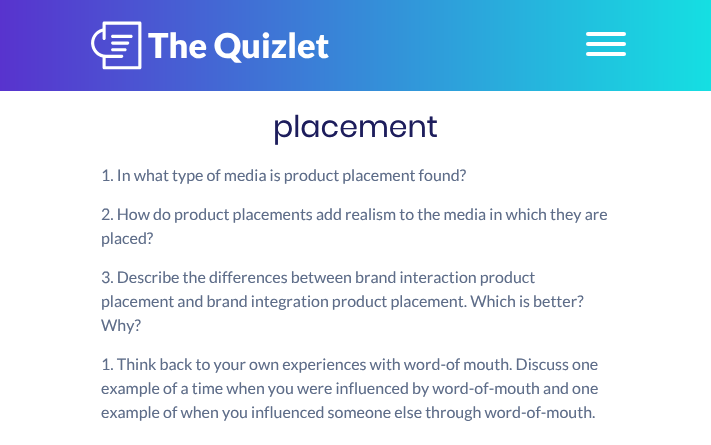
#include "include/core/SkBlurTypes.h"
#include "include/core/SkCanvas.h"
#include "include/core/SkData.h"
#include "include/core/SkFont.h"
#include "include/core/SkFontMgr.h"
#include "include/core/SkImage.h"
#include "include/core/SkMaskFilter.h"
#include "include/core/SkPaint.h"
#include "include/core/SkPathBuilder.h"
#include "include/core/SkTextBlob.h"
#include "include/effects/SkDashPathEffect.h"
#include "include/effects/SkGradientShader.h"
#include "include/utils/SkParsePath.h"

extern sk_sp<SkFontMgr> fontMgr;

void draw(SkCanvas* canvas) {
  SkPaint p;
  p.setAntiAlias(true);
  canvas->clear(SK_ColorWHITE);
  {
    const SkColor colors[] = {SkColorSetRGB(88, 51, 206), SkColorSetRGB(21, 223, 226)};
    const float stops[] = {0, 1};
    const SkPoint ends[] = {{0, 46}, {711, 45}};
    p.setShader(SkGradientShader::MakeLinear(ends, colors, stops, 2, SkTileMode::kClamp));
    p.setAlpha(255);
  }
  canvas->drawRect(SkRect::MakeLTRB(0, 0, 711, 91), p);
  canvas->drawImageRect(SkImages::DeferredFromEncodedData(SkData::MakeFromFileName("images/1.png")), SkRect::MakeLTRB(91, 21, 329, 70), SkSamplingOptions());
  p.setShader(nullptr);
  p.setColor(SK_ColorWHITE);
  canvas->drawRoundRect(SkRect::MakeLTRB(586, 32, 626, 36), 2, 2, p);
  canvas->drawRoundRect(SkRect::MakeLTRB(586, 42, 626, 46), 2, 2, p);
  canvas->drawRoundRect(SkRect::MakeLTRB(586, 52, 626, 56), 2, 2, p);
  SkFont font1(fontMgr->matchFamilyStyle("Poppins", SkFontStyle::Normal()), 30);
  font1.setSubpixel(true);
  p.setColor(SkColorSetRGB(29, 29, 92));
  canvas->drawString("placement", 273, 137, font1, p);
  SkFont font2(fontMgr->matchFamilyStyle("Lato", SkFontStyle::Normal()), 16);
  font2.setSubpixel(true);
  p.setColor(SkColorSetRGB(94, 109, 137));
  canvas->drawString("1. In what type of media is product placement found?", 101, 181, font2, p);
  canvas->drawString("2. How do product placements add realism to the media in which they are", 101, 220, font2, p);
  canvas->drawString("placed?", 101, 244, font2, p);
  canvas->drawString("3. Describe the differences between brand interaction product", 101, 283, font2, p);
  canvas->drawString("placement and brand integration product placement. Which is better?", 101, 307, font2, p);
  canvas->drawString("Why?", 101, 331, font2, p);
  canvas->drawString("1. Think back to your own experiences with word-of mouth. Discuss one", 101, 370, font2, p);
  canvas->drawString("example of a time when you were influenced by word-of-mouth and one", 101, 394, font2, p);
  canvas->drawString("example of when you influenced someone else through word-of-mouth.", 101, 418, font2, p);
}
